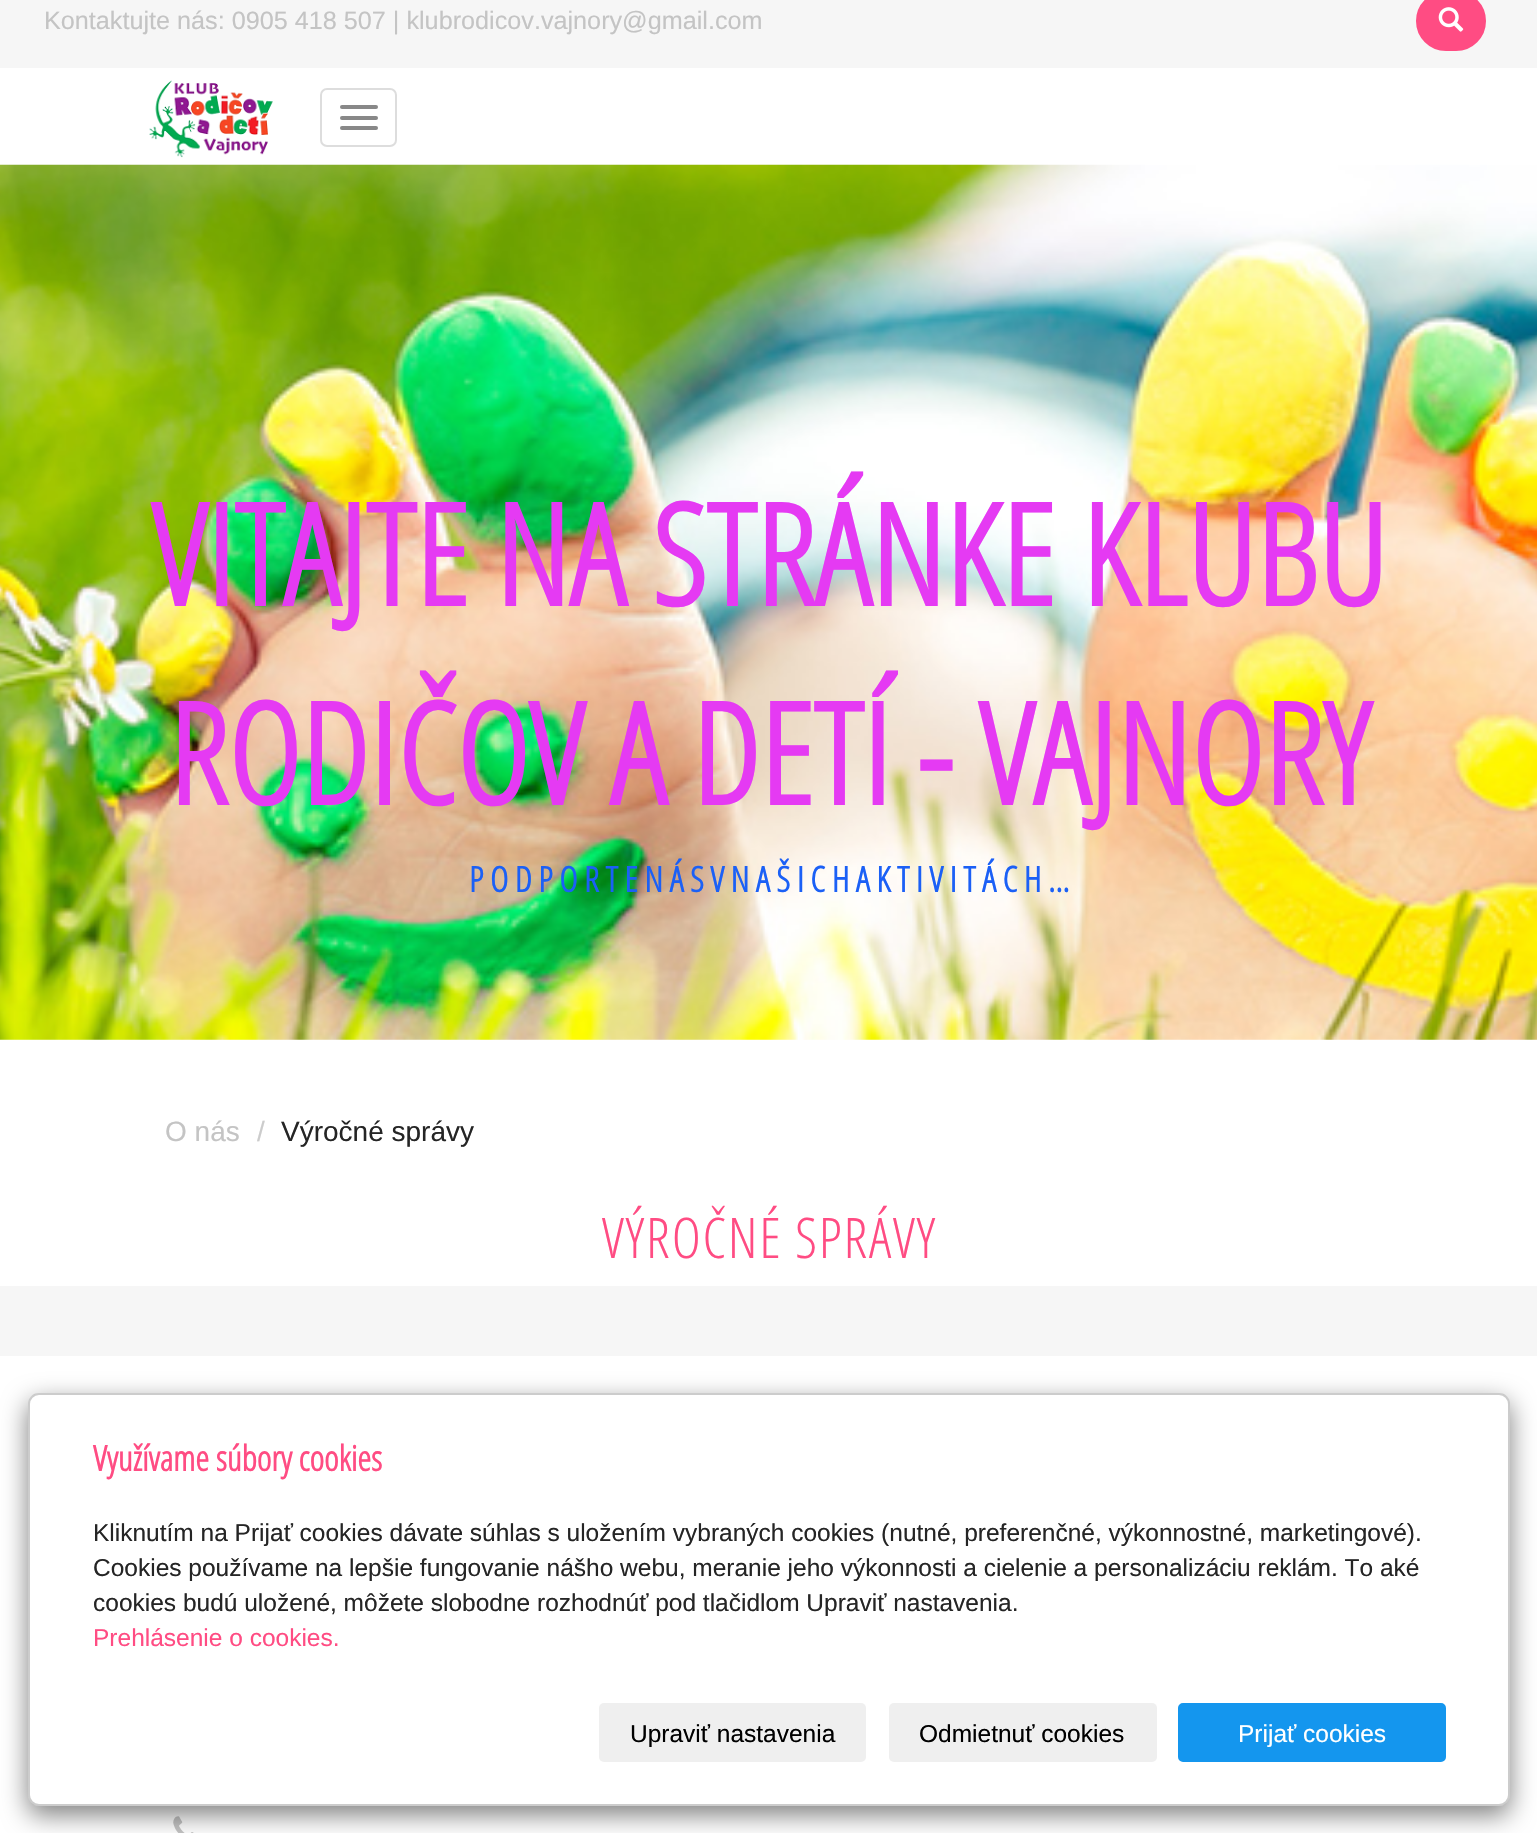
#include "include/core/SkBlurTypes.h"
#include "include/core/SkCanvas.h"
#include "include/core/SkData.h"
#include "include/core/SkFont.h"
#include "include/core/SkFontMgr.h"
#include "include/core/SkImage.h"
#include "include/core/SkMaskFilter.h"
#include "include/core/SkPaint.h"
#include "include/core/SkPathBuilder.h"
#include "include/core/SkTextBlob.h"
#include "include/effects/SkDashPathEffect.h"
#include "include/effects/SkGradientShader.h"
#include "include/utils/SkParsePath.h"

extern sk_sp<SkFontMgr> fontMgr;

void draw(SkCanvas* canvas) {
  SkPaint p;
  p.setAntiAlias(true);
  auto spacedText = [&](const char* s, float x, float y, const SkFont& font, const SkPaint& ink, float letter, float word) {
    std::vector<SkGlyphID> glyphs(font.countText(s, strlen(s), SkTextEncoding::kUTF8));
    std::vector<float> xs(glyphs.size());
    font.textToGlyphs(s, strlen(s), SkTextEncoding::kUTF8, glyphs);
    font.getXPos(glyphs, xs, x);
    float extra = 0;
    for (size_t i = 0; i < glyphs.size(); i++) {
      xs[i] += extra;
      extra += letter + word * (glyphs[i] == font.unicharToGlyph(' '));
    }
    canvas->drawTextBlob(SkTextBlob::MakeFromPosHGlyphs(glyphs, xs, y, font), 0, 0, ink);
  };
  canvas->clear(SK_ColorWHITE);
  p.setColor(SkColorSetRGB(246, 246, 246));
  canvas->drawRect(SkRect::MakeLTRB(0, 0, 1537, 68), p);
  p.setColor(SkColorSetRGB(255, 76, 131));
  canvas->drawRoundRect(SkRect::MakeLTRB(1417, -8, 1485, 50), 29, 29, p);
  p.setStyle(SkPaint::kStroke_Style);
  p.setStrokeWidth(2);
  canvas->drawRoundRect(SkRect::MakeLTRB(1417, -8, 1485, 50), 29, 29, p);
  canvas->drawImageRect(SkImages::DeferredFromEncodedData(SkData::MakeFromFileName("images/1.png")), SkRect::MakeLTRB(1438, 7, 1464, 32), SkSamplingOptions());
  canvas->drawImageRect(SkImages::DeferredFromEncodedData(SkData::MakeFromFileName("images/2.png")), SkRect::MakeLTRB(149, 80, 273, 158), SkSamplingOptions());
  p.setColor(SkColorSetRGB(221, 221, 221));
  canvas->drawRoundRect(SkRect::MakeLTRB(321, 89, 396, 146), 6, 6, p);
  p.setStyle(SkPaint::kFill_Style);
  p.setColor(SkColorSetRGB(136, 136, 136));
  canvas->drawRoundRect(SkRect::MakeLTRB(340, 105, 378, 109), 2, 2, p);
  canvas->drawRoundRect(SkRect::MakeLTRB(340, 116, 378, 120), 2, 2, p);
  canvas->drawRoundRect(SkRect::MakeLTRB(340, 126, 378, 130), 2, 2, p);
  p.setColor(SkColorSetRGB(246, 246, 246));
  canvas->drawRect(SkRect::MakeLTRB(0, 1286, 1537, 1356), p);
  canvas->drawImageRect(SkImages::DeferredFromEncodedData(SkData::MakeFromFileName("images/3.png")), SkRect::MakeLTRB(0, 164, 1537, 1040), SkSamplingOptions());
  canvas->drawImageRect(SkImages::DeferredFromEncodedData(SkData::MakeFromFileName("images/4.png")), SkRect::MakeLTRB(173, 1816, 194, 1833), SkSamplingOptions());
  canvas->save();
  canvas->clipPath(SkPathBuilder(SkPathFillType::kEvenOdd).moveTo(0, 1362).lineTo(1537, 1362).lineTo(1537, 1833).lineTo(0, 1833).close().moveTo(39, 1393).lineTo(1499, 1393).cubicTo(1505, 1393, 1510, 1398, 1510, 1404).lineTo(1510, 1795).cubicTo(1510, 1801, 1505, 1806, 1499, 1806).lineTo(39, 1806).cubicTo(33, 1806, 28, 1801, 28, 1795).lineTo(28, 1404).cubicTo(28, 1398, 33, 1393, 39, 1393).close().detach(), true);
  p.setColor(SkColorSetARGB(128, 0, 0, 0));
  p.setMaskFilter(SkMaskFilter::MakeBlur(kNormal_SkBlurStyle, 13));
  canvas->drawRoundRect(SkRect::MakeLTRB(28, 1402, 1510, 1815), 11, 11, p);
  p.setMaskFilter(nullptr);
  canvas->restore();
  p.setStyle(SkPaint::kStroke_Style);
  p.setColor(SkColorSetARGB(51, 0, 0, 0));
  canvas->drawRoundRect(SkRect::MakeLTRB(29, 1394, 1509, 1805), 10, 10, p);
  p.setStyle(SkPaint::kFill_Style);
  p.setColor(SkColorSetRGB(239, 239, 239));
  canvas->drawRoundRect(SkRect::MakeLTRB(599, 1703, 866, 1762), 5, 5, p);
  canvas->drawRoundRect(SkRect::MakeLTRB(889, 1703, 1157, 1762), 5, 5, p);
  p.setColor(SkColorSetRGB(20, 150, 238));
  canvas->drawRoundRect(SkRect::MakeLTRB(1179, 1704, 1445, 1761), 4, 4, p);
  p.setStyle(SkPaint::kStroke_Style);
  canvas->drawRoundRect(SkRect::MakeLTRB(1179, 1704, 1445, 1761), 4, 4, p);
  SkFont font1(fontMgr->matchFamilyStyle("Liberation Sans", SkFontStyle::Normal()), 25.2f);
  font1.setSubpixel(true);
  p.setStyle(SkPaint::kFill_Style);
  p.setColor(SkColorSetRGB(196, 196, 196));
  canvas->drawString("Kontaktujte nás: 0905 418 507 | klubrodicov.vajnory@gmail.com", 44, 29, font1, p);
  SkFont font2(fontMgr->matchFamilyStyle("Open Sans", SkFontStyle::Bold()), 140);
  font2.setSubpixel(true);
  p.setColor(SkColorSetRGB(229, 58, 243));
  canvas->drawString("VITAJTE NA STRÁNKE KLUBU", 151, 606, font2, p);
  canvas->drawString("RODIČOV A DETÍ - VAJNORY", 168, 805, font2, p);
  SkFont font3(fontMgr->matchFamilyStyle("Open Sans", SkFontStyle::Bold()), 35);
  font3.setSubpixel(true);
  p.setColor(SkColorSetRGB(27, 96, 246));
  canvas->drawString("P O D P O R T E N Á S V N A Š I C H A K T I V I T Á C H ...", 469, 892, font3, p);
  SkFont font4(fontMgr->matchFamilyStyle("Liberation Sans", SkFontStyle::Normal()), 28);
  font4.setSubpixel(true);
  p.setColor(SkColorSetRGB(196, 196, 196));
  canvas->drawString("O nás", 165, 1141, font4, p);
  p.setColor(SkColorSetRGB(204, 204, 204));
  canvas->drawString("/", 257, 1141, font4, p);
  p.setColor(SkColorSetRGB(37, 37, 37));
  canvas->drawString("Výročné správy", 281, 1141, font4, p);
  SkFont font5(fontMgr->matchFamilyStyle("Open Sans", SkFontStyle(300, SkFontStyle::kNormal_Width, SkFontStyle::kUpright_Slant)), 56);
  font5.setSubpixel(true);
  p.setColor(SkColorSetRGB(255, 76, 131));
  spacedText("VÝROČNÉ SPRÁVY", 602, 1258, font5, p, 1.75f, 0);
  canvas->drawString("Využívame súbory cookies", 93, 1471, font3, p);
  SkFont font6(fontMgr->matchFamilyStyle("Liberation Sans", SkFontStyle::Normal()), 24.5f);
  font6.setSubpixel(true);
  p.setColor(SkColorSetRGB(37, 37, 37));
  canvas->drawString("Kliknutím na Prijať cookies dávate súhlas s uložením vybraných cookies (nutné, preferenčné, výkonnostné, marketingové).", 93, 1541, font6, p);
  canvas->drawString("Cookies používame na lepšie fungovanie nášho webu, meranie jeho výkonnosti a cielenie a personalizáciu reklám. To aké", 93, 1576, font6, p);
  canvas->drawString("cookies budú uložené, môžete slobodne rozhodnúť pod tlačidlom Upraviť nastavenia.", 93, 1611, font6, p);
  p.setColor(SkColorSetRGB(255, 76, 131));
  canvas->drawString("Prehlásenie o cookies.", 93, 1646, font6, p);
  p.setColor(SK_ColorBLACK);
  canvas->drawString("Upraviť nastavenia", 630, 1742, font6, p);
  canvas->drawString("Odmietnuť cookies", 919, 1742, font6, p);
  p.setColor(SK_ColorWHITE);
  canvas->drawString("Prijať cookies", 1238, 1742, font6, p);
}
